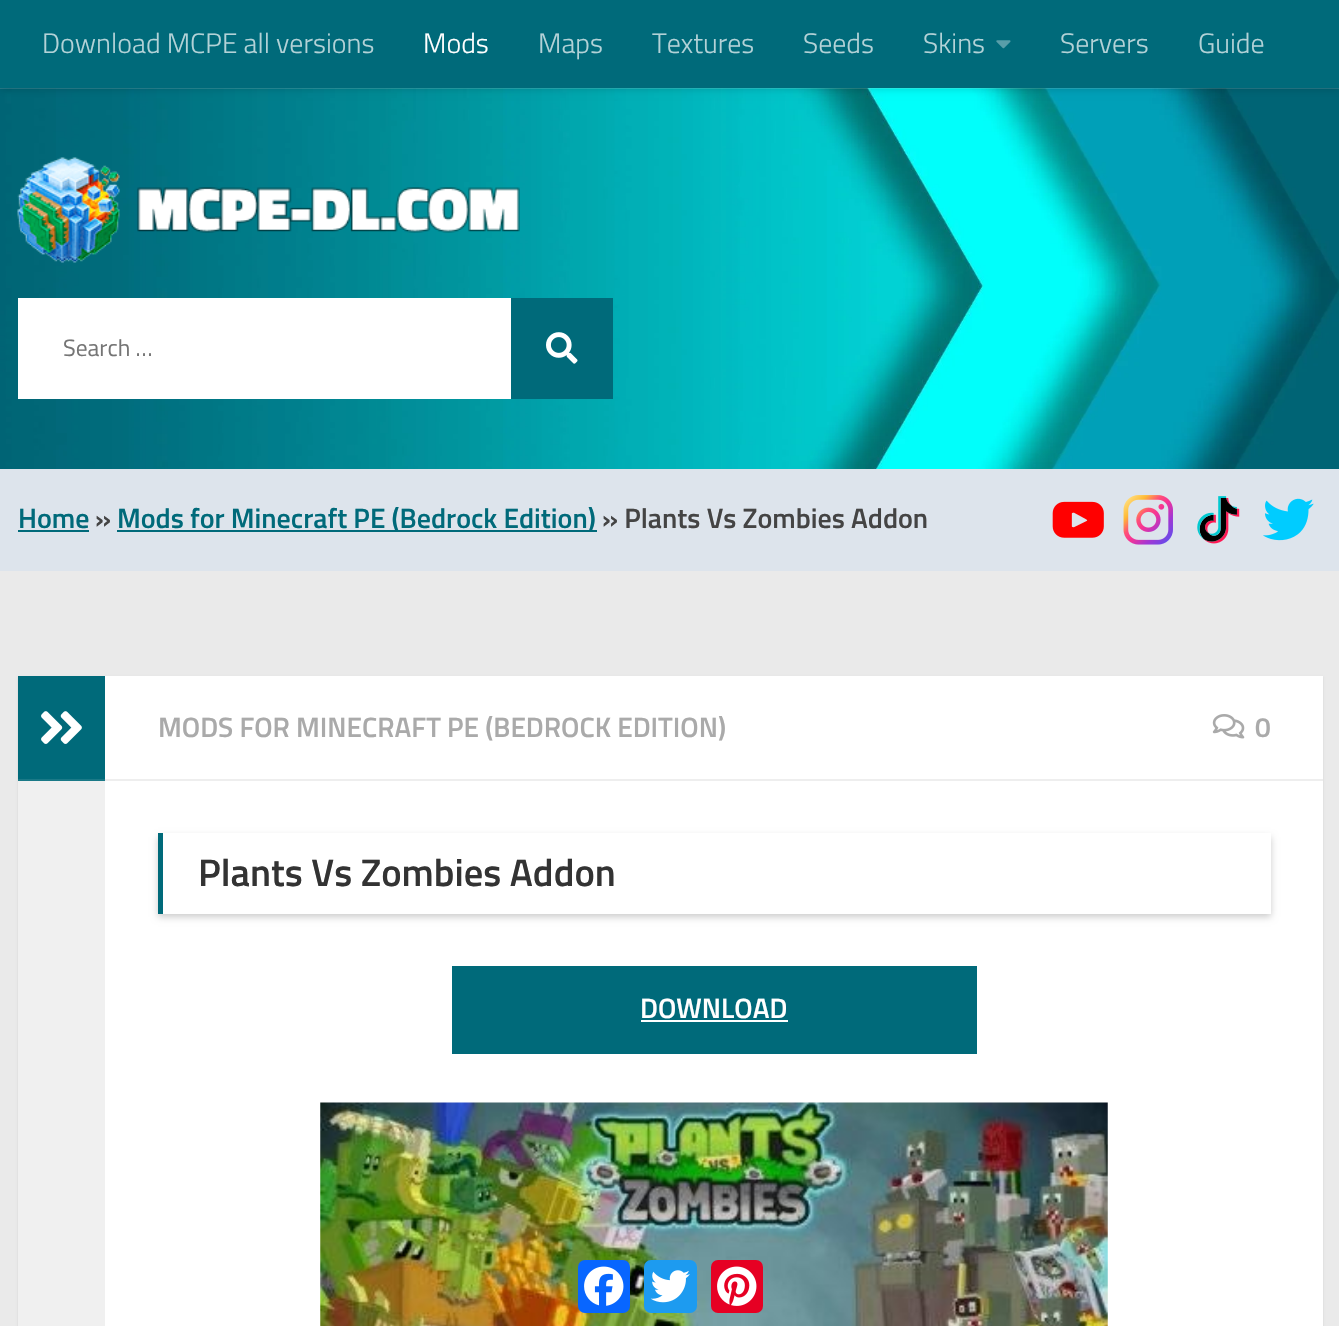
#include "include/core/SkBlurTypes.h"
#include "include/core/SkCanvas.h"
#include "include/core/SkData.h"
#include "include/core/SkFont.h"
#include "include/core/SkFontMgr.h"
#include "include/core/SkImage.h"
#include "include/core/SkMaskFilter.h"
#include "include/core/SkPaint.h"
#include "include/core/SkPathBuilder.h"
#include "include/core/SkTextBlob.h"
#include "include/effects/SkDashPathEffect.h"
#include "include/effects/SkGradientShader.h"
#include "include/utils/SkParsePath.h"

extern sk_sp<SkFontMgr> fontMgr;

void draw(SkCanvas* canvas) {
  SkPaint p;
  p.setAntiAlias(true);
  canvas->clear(SkColorSetRGB(234, 234, 234));
  canvas->drawImageRect(SkImages::DeferredFromEncodedData(SkData::MakeFromFileName("images/1.png")), SkRect::MakeLTRB(0, 88, 1339, 469), SkSamplingOptions());
  p.setColor(SkColorSetARGB(38, 255, 255, 255));
  canvas->drawPath(SkPathBuilder().moveTo(0, 88).lineTo(0, 89).lineTo(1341, 89).lineTo(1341, 2).lineTo(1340, 2).lineTo(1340, 88).close().detach(), p);
  p.setColor(SkColorSetARGB(51, 0, 0, 0));
  p.setMaskFilter(SkMaskFilter::MakeBlur(kNormal_SkBlurStyle, 4.5f));
  canvas->drawRect(SkRect::MakeLTRB(0, 0, 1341, 88), p);
  p.setMaskFilter(nullptr);
  p.setColor(SkColorSetRGB(0, 106, 122));
  canvas->drawRect(SkRect::MakeLTRB(0, 0, 1339, 88), p);
  canvas->drawImageRect(SkImages::DeferredFromEncodedData(SkData::MakeFromFileName("images/2.png")), SkRect::MakeLTRB(996, 40, 1011, 49), SkSamplingOptions());
  canvas->drawImageRect(SkImages::DeferredFromEncodedData(SkData::MakeFromFileName("images/3.png")), SkRect::MakeLTRB(17, 157, 520, 263), SkSamplingOptions());
  p.setColor(SK_ColorWHITE);
  canvas->drawRect(SkRect::MakeLTRB(18, 298, 511, 399), p);
  p.setColor(SkColorSetRGB(0, 106, 122));
  canvas->drawRect(SkRect::MakeLTRB(511, 298, 613, 399), p);
  canvas->drawImageRect(SkImages::DeferredFromEncodedData(SkData::MakeFromFileName("images/4.png")), SkRect::MakeLTRB(546, 332, 578, 364), SkSamplingOptions());
  p.setColor(SkColorSetRGB(221, 228, 236));
  canvas->drawRect(SkRect::MakeLTRB(0, 469, 1339, 571), p);
  p.setColor(SkColorSetRGB(0, 106, 122));
  canvas->drawRect(SkRect::MakeLTRB(18, 530, 89, 532), p);
  canvas->drawRect(SkRect::MakeLTRB(117, 530, 597, 532), p);
  canvas->drawImageRect(SkImages::DeferredFromEncodedData(SkData::MakeFromFileName("images/5.png")), SkRect::MakeLTRB(1052, 501, 1104, 538), SkSamplingOptions());
  canvas->drawImageRect(SkImages::DeferredFromEncodedData(SkData::MakeFromFileName("images/6.png")), SkRect::MakeLTRB(1123, 495, 1173, 545), SkSamplingOptions());
  canvas->drawImageRect(SkImages::DeferredFromEncodedData(SkData::MakeFromFileName("images/7.png")), SkRect::MakeLTRB(1197, 496, 1240, 544), SkSamplingOptions());
  canvas->drawImageRect(SkImages::DeferredFromEncodedData(SkData::MakeFromFileName("images/8.png")), SkRect::MakeLTRB(1263, 498, 1314, 541), SkSamplingOptions());
  p.setColor(SkColorSetARGB(26, 0, 0, 0));
  p.setMaskFilter(SkMaskFilter::MakeBlur(kNormal_SkBlurStyle, 1));
  canvas->drawRect(SkRect::MakeLTRB(18, 677, 1323, 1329), p);
  p.setMaskFilter(nullptr);
  p.setColor(SK_ColorWHITE);
  canvas->drawRect(SkRect::MakeLTRB(105, 676, 1323, 1326), p);
  p.setColor(SkColorSetRGB(240, 240, 240));
  canvas->drawRect(SkRect::MakeLTRB(18, 781, 105, 1326), p);
  p.setColor(SkColorSetRGB(0, 106, 122));
  canvas->drawRect(SkRect::MakeLTRB(18, 676, 105, 779), p);
  p.setColor(SkColorSetRGB(26, 121, 135));
  canvas->drawRect(SkRect::MakeLTRB(18, 779, 105, 781), p);
  canvas->drawImageRect(SkImages::DeferredFromEncodedData(SkData::MakeFromFileName("images/9.png")), SkRect::MakeLTRB(41, 711, 82, 744), SkSamplingOptions());
  p.setColor(SkColorSetRGB(238, 238, 238));
  canvas->drawRect(SkRect::MakeLTRB(105, 779, 1323, 781), p);
  canvas->drawImageRect(SkImages::DeferredFromEncodedData(SkData::MakeFromFileName("images/10.png")), SkRect::MakeLTRB(1212, 714, 1245, 739), SkSamplingOptions());
  canvas->save();
  canvas->clipPath(SkPathBuilder(SkPathFillType::kEvenOdd).moveTo(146, 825).lineTo(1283, 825).lineTo(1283, 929).lineTo(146, 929).close().moveTo(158, 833).lineTo(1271, 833).lineTo(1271, 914).lineTo(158, 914).close().detach(), true);
  p.setColor(SkColorSetARGB(51, 0, 0, 0));
  p.setMaskFilter(SkMaskFilter::MakeBlur(kNormal_SkBlurStyle, 3.5f));
  canvas->drawRect(SkRect::MakeLTRB(158, 837, 1271, 917), p);
  p.setMaskFilter(nullptr);
  canvas->restore();
  p.setColor(SkColorSetRGB(0, 106, 122));
  canvas->drawRect(SkRect::MakeLTRB(158, 833, 163, 914), p);
  canvas->drawRect(SkRect::MakeLTRB(452, 966, 977, 1054), p);
  p.setColor(SK_ColorWHITE);
  canvas->drawRect(SkRect::MakeLTRB(641, 1020, 788, 1022), p);
  canvas->drawImageRect(SkImages::DeferredFromEncodedData(SkData::MakeFromFileName("images/11.png")), SkRect::MakeLTRB(320, 1102, 1108, 1326), SkSamplingOptions());
  p.setColor(SkColorSetRGB(8, 102, 255));
  canvas->drawRoundRect(SkRect::MakeLTRB(578, 1260, 630, 1313), 7, 7, p);
  canvas->drawImageRect(SkImages::DeferredFromEncodedData(SkData::MakeFromFileName("images/12.png")), SkRect::MakeLTRB(584, 1266, 624, 1306), SkSamplingOptions());
  p.setColor(SkColorSetRGB(29, 155, 240));
  canvas->drawRoundRect(SkRect::MakeLTRB(644, 1260, 697, 1313), 7, 7, p);
  canvas->drawImageRect(SkImages::DeferredFromEncodedData(SkData::MakeFromFileName("images/13.png")), SkRect::MakeLTRB(650, 1270, 690, 1303), SkSamplingOptions());
  p.setColor(SkColorSetRGB(230, 0, 35));
  canvas->drawRoundRect(SkRect::MakeLTRB(711, 1260, 763, 1313), 7, 7, p);
  canvas->drawImageRect(SkImages::DeferredFromEncodedData(SkData::MakeFromFileName("images/14.png")), SkRect::MakeLTRB(717, 1266, 757, 1306), SkSamplingOptions());
  SkFont font1(fontMgr->matchFamilyStyle("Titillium", SkFontStyle(300, SkFontStyle::kNormal_Width, SkFontStyle::kUpright_Slant)), 28);
  font1.setSubpixel(true);
  p.setColor(SkColorSetRGB(179, 210, 215));
  canvas->drawString("Download MCPE all versions", 42, 53, font1, p);
  p.setColor(SK_ColorWHITE);
  canvas->drawString("Mods", 423, 53, font1, p);
  p.setColor(SkColorSetRGB(179, 210, 215));
  canvas->drawString("Maps", 538, 53, font1, p);
  canvas->drawString("Textures", 652, 53, font1, p);
  canvas->drawString("Seeds", 803, 53, font1, p);
  canvas->drawString("Skins", 923, 53, font1, p);
  canvas->drawString("Servers", 1060, 53, font1, p);
  canvas->drawString("Guide", 1198, 53, font1, p);
  SkFont font2(fontMgr->matchFamilyStyle("Titillium", SkFontStyle::Normal()), 23.5f);
  font2.setSubpixel(true);
  p.setColor(SkColorSetRGB(117, 117, 117));
  canvas->drawString("Search …", 63, 356, font2, p);
  SkFont font3(fontMgr->matchFamilyStyle("Titillium", SkFontStyle(600, SkFontStyle::kNormal_Width, SkFontStyle::kUpright_Slant)), 28);
  font3.setSubpixel(true);
  p.setColor(SkColorSetRGB(0, 106, 122));
  canvas->drawString("Home", 18, 528, font3, p);
  p.setColor(SkColorSetRGB(68, 68, 68));
  canvas->drawString("»", 95, 528, font3, p);
  p.setColor(SkColorSetRGB(0, 106, 122));
  canvas->drawString("Mods for Minecraft PE (Bedrock Edition)", 117, 528, font3, p);
  p.setColor(SkColorSetRGB(68, 68, 68));
  canvas->drawString("» Plants Vs Zombies Addon", 602, 528, font3, p);
  p.setColor(SkColorSetRGB(170, 170, 170));
  canvas->drawString("MODS FOR MINECRAFT PE (BEDROCK EDITION)", 158, 737, font3, p);
  canvas->drawString("0", 1255, 737, font3, p);
  SkFont font4(fontMgr->matchFamilyStyle("Titillium", SkFontStyle(600, SkFontStyle::kNormal_Width, SkFontStyle::kUpright_Slant)), 38.5f);
  font4.setSubpixel(true);
  p.setColor(SkColorSetRGB(51, 51, 51));
  canvas->drawString("Plants Vs Zombies Addon", 198, 886, font4, p);
  p.setColor(SK_ColorWHITE);
  canvas->drawString("DOWNLOAD", 640, 1018, font3, p);
}
